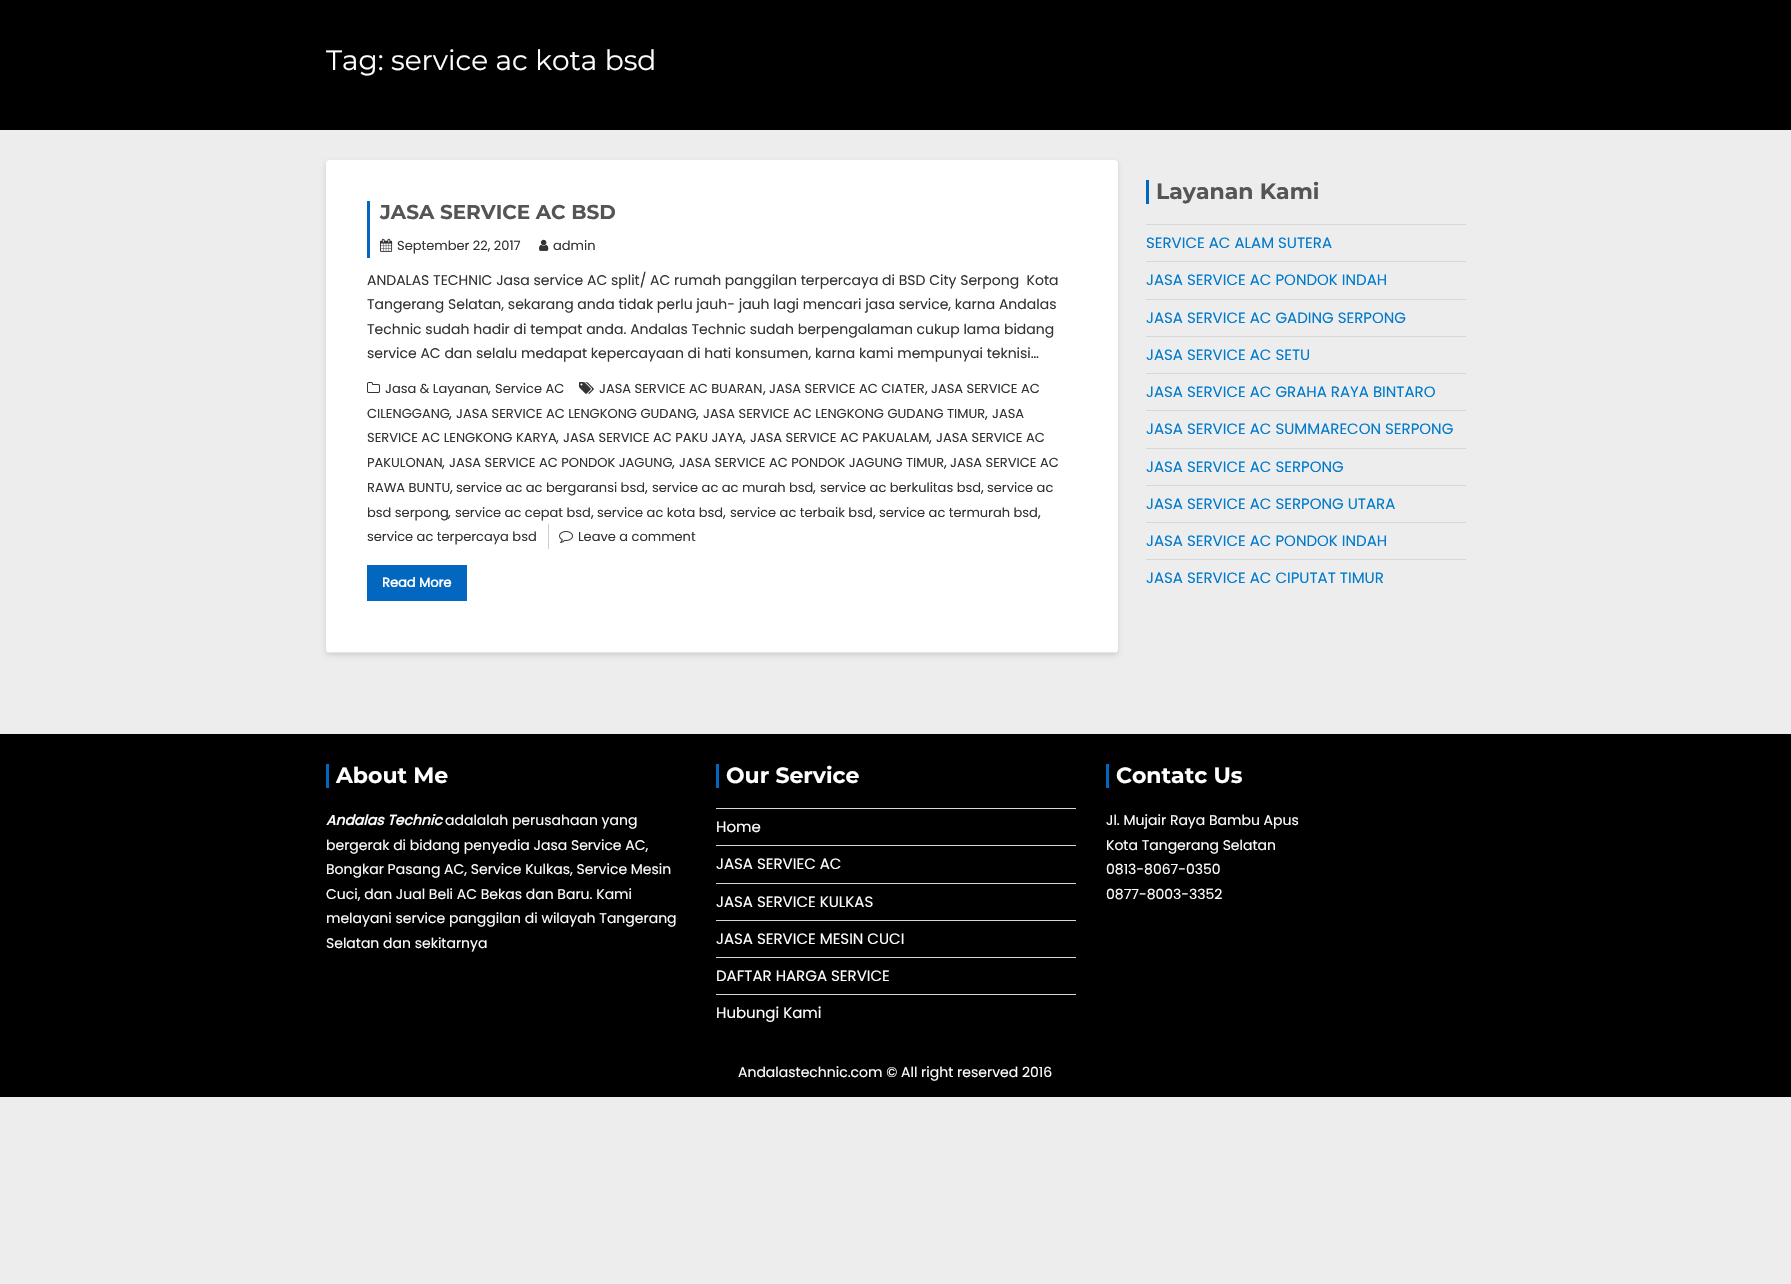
#include "include/core/SkBlurTypes.h"
#include "include/core/SkCanvas.h"
#include "include/core/SkData.h"
#include "include/core/SkFont.h"
#include "include/core/SkFontMgr.h"
#include "include/core/SkImage.h"
#include "include/core/SkMaskFilter.h"
#include "include/core/SkPaint.h"
#include "include/core/SkPathBuilder.h"
#include "include/core/SkTextBlob.h"
#include "include/effects/SkDashPathEffect.h"
#include "include/effects/SkGradientShader.h"
#include "include/utils/SkParsePath.h"

extern sk_sp<SkFontMgr> fontMgr;

void draw(SkCanvas* canvas) {
  SkPaint p;
  p.setAntiAlias(true);
  canvas->clear(SkColorSetRGB(237, 237, 237));
  p.setColor(SK_ColorBLACK);
  canvas->drawRect(SkRect::MakeLTRB(0, 0, 1791, 130), p);
  p.setColor(SkColorSetARGB(33, 0, 0, 0));
  p.setMaskFilter(SkMaskFilter::MakeBlur(kNormal_SkBlurStyle, 2.5f));
  canvas->drawRoundRect(SkRect::MakeLTRB(326, 162, 1118, 655), 4, 4, p);
  p.setMaskFilter(nullptr);
  p.setColor(SK_ColorWHITE);
  canvas->drawRoundRect(SkRect::MakeLTRB(326, 160, 1118, 653), 4, 4, p);
  p.setColor(SkColorSetRGB(229, 229, 229));
  canvas->drawRect(SkRect::MakeLTRB(328, 652, 1116, 653), p);
  p.setColor(SkColorSetRGB(3, 103, 191));
  canvas->drawRect(SkRect::MakeLTRB(367, 201, 370, 258), p);
  canvas->drawImageRect(SkImages::DeferredFromEncodedData(SkData::MakeFromFileName("images/1.png")), SkRect::MakeLTRB(380, 238, 393, 252), SkSamplingOptions());
  canvas->drawImageRect(SkImages::DeferredFromEncodedData(SkData::MakeFromFileName("images/2.png")), SkRect::MakeLTRB(539, 239, 549, 251), SkSamplingOptions());
  canvas->drawImageRect(SkImages::DeferredFromEncodedData(SkData::MakeFromFileName("images/3.png")), SkRect::MakeLTRB(579, 382, 594, 394), SkSamplingOptions());
  canvas->drawImageRect(SkImages::DeferredFromEncodedData(SkData::MakeFromFileName("images/4.png")), SkRect::MakeLTRB(367, 382, 380, 393), SkSamplingOptions());
  p.setColor(SkColorSetRGB(204, 204, 204));
  canvas->drawRect(SkRect::MakeLTRB(548, 524, 549, 549), p);
  canvas->drawImageRect(SkImages::DeferredFromEncodedData(SkData::MakeFromFileName("images/5.png")), SkRect::MakeLTRB(559, 531, 573, 543), SkSamplingOptions());
  p.setColor(SkColorSetRGB(3, 103, 191));
  canvas->drawRect(SkRect::MakeLTRB(367, 565, 467, 601), p);
  canvas->drawRect(SkRect::MakeLTRB(1146, 180, 1149, 204), p);
  p.setColor(SkColorSetRGB(215, 215, 215));
  canvas->drawRect(SkRect::MakeLTRB(1146, 224, 1466, 225), p);
  canvas->drawRect(SkRect::MakeLTRB(1146, 261, 1466, 262), p);
  canvas->drawRect(SkRect::MakeLTRB(1146, 299, 1466, 300), p);
  canvas->drawRect(SkRect::MakeLTRB(1146, 336, 1466, 337), p);
  canvas->drawRect(SkRect::MakeLTRB(1146, 373, 1466, 374), p);
  canvas->drawRect(SkRect::MakeLTRB(1146, 410, 1466, 411), p);
  canvas->drawRect(SkRect::MakeLTRB(1146, 448, 1466, 449), p);
  canvas->drawRect(SkRect::MakeLTRB(1146, 485, 1466, 486), p);
  canvas->drawRect(SkRect::MakeLTRB(1146, 522, 1466, 523), p);
  canvas->drawRect(SkRect::MakeLTRB(1146, 559, 1466, 560), p);
  p.setColor(SK_ColorBLACK);
  canvas->drawRect(SkRect::MakeLTRB(0, 734, 1791, 1097), p);
  p.setColor(SkColorSetRGB(3, 103, 191));
  canvas->drawRect(SkRect::MakeLTRB(326, 764, 329, 788), p);
  canvas->drawRect(SkRect::MakeLTRB(716, 764, 719, 788), p);
  p.setColor(SkColorSetRGB(215, 215, 215));
  canvas->drawRect(SkRect::MakeLTRB(716, 808, 1076, 809), p);
  canvas->drawRect(SkRect::MakeLTRB(716, 845, 1076, 846), p);
  canvas->drawRect(SkRect::MakeLTRB(716, 883, 1076, 884), p);
  canvas->drawRect(SkRect::MakeLTRB(716, 920, 1076, 921), p);
  canvas->drawRect(SkRect::MakeLTRB(716, 957, 1076, 958), p);
  canvas->drawRect(SkRect::MakeLTRB(716, 994, 1076, 995), p);
  p.setColor(SkColorSetRGB(3, 103, 191));
  canvas->drawRect(SkRect::MakeLTRB(1106, 764, 1109, 788), p);
  SkFont font1(fontMgr->matchFamilyStyle("Montserrat", SkFontStyle::Normal()), 28);
  font1.setSubpixel(true);
  p.setColor(SK_ColorWHITE);
  canvas->drawString("Tag: service ac kota bsd", 326, 70, font1, p);
  SkFont font2(fontMgr->matchFamilyStyle("Montserrat", SkFontStyle::Bold()), 20);
  font2.setSubpixel(true);
  p.setColor(SkColorSetRGB(85, 85, 85));
  canvas->drawString("JASA SERVICE AC BSD", 380, 219, font2, p);
  SkFont font3(fontMgr->matchFamilyStyle("Poppins", SkFontStyle::Normal()), 13);
  font3.setSubpixel(true);
  p.setColor(SkColorSetRGB(51, 51, 51));
  canvas->drawString("September 22, 2017", 397, 250, font3, p);
  canvas->drawString("admin", 553, 250, font3, p);
  SkFont font4(fontMgr->matchFamilyStyle("Poppins", SkFontStyle::Normal()), 14);
  font4.setSubpixel(true);
  canvas->drawString("ANDALAS TECHNIC Jasa service AC split/ AC rumah panggilan terpercaya di BSD City Serpong  Kota", 367, 285, font4, p);
  canvas->drawString("Tangerang Selatan, sekarang anda tidak perlu jauh- jauh lagi mencari jasa service, karna Andalas", 367, 309, font4, p);
  canvas->drawString("Technic sudah hadir di tempat anda. Andalas Technic sudah berpengalaman cukup lama bidang", 367, 334, font4, p);
  canvas->drawString("service AC dan selalu medapat kepercayaan di hati konsumen, karna kami mempunyai teknisi…", 367, 358, font4, p);
  canvas->drawString("JASA SERVICE AC BUARAN", 599, 393, font3, p);
  canvas->drawString(",", 763, 393, font4, p);
  canvas->drawString("JASA SERVICE AC CIATER", 769, 393, font3, p);
  canvas->drawString(",", 925, 393, font4, p);
  canvas->drawString("JASA SERVICE AC", 931, 393, font3, p);
  canvas->drawString("CILENGGANG", 367, 418, font3, p);
  canvas->drawString(",", 449, 418, font4, p);
  canvas->drawString("JASA SERVICE AC LENGKONG GUDANG", 456, 418, font3, p);
  canvas->drawString(",", 696, 418, font4, p);
  canvas->drawString("JASA SERVICE AC LENGKONG GUDANG TIMUR", 703, 418, font3, p);
  canvas->drawString(",", 985, 418, font4, p);
  canvas->drawString("JASA", 992, 418, font3, p);
  canvas->drawString("SERVICE AC LENGKONG KARYA", 367, 442, font3, p);
  canvas->drawString(",", 556, 442, font4, p);
  canvas->drawString("JASA SERVICE AC PAKU JAYA", 563, 442, font3, p);
  canvas->drawString(",", 743, 442, font4, p);
  canvas->drawString("JASA SERVICE AC PAKUALAM", 750, 442, font3, p);
  canvas->drawString(",", 929, 442, font4, p);
  canvas->drawString("JASA SERVICE AC", 936, 442, font3, p);
  canvas->drawString("PAKULONAN", 367, 467, font3, p);
  canvas->drawString(",", 442, 467, font4, p);
  canvas->drawString("JASA SERVICE AC PONDOK JAGUNG", 449, 467, font3, p);
  canvas->drawString(",", 672, 467, font4, p);
  canvas->drawString("JASA SERVICE AC PONDOK JAGUNG TIMUR", 679, 467, font3, p);
  canvas->drawString(",", 944, 467, font4, p);
  canvas->drawString("JASA SERVICE AC", 950, 467, font3, p);
  canvas->drawString("RAWA BUNTU", 367, 492, font3, p);
  canvas->drawString(",", 450, 492, font4, p);
  canvas->drawString("service ac ac bergaransi bsd", 456, 492, font3, p);
  canvas->drawString(",", 645, 492, font4, p);
  canvas->drawString("service ac ac murah bsd", 652, 492, font3, p);
  canvas->drawString(",", 813, 492, font4, p);
  canvas->drawString("service ac berkulitas bsd", 820, 492, font3, p);
  canvas->drawString(",", 981, 492, font4, p);
  canvas->drawString("service ac", 987, 492, font3, p);
  canvas->drawString("bsd serpong", 367, 517, font3, p);
  canvas->drawString(",", 448, 517, font4, p);
  canvas->drawString("service ac cepat bsd", 455, 517, font3, p);
  canvas->drawString(",", 591, 517, font4, p);
  canvas->drawString("service ac kota bsd", 597, 517, font3, p);
  canvas->drawString(",", 723, 517, font4, p);
  canvas->drawString("service ac terbaik bsd", 730, 517, font3, p);
  canvas->drawString(",", 873, 517, font4, p);
  canvas->drawString("service ac termurah bsd", 879, 517, font3, p);
  canvas->drawString(",", 1038, 517, font4, p);
  canvas->drawString("service ac terpercaya bsd", 367, 541, font3, p);
  canvas->drawString("Jasa & Layanan", 385, 393, font3, p);
  canvas->drawString(",", 488, 393, font4, p);
  canvas->drawString("Service AC", 495, 393, font3, p);
  canvas->drawString("Leave a comment", 578, 541, font3, p);
  SkFont font5(fontMgr->matchFamilyStyle("Poppins", SkFontStyle::Bold()), 13);
  font5.setSubpixel(true);
  p.setColor(SK_ColorWHITE);
  canvas->drawString("Read More", 382, 587, font5, p);
  SkFont font6(fontMgr->matchFamilyStyle("Montserrat", SkFontStyle::Bold()), 22);
  font6.setSubpixel(true);
  p.setColor(SkColorSetRGB(85, 85, 85));
  canvas->drawString("Layanan Kami", 1156, 199, font6, p);
  SkFont font7(fontMgr->matchFamilyStyle("Poppins", SkFontStyle::Normal()), 15);
  font7.setSubpixel(true);
  p.setColor(SkColorSetRGB(0, 122, 204));
  canvas->drawString("SERVICE AC ALAM SUTERA", 1146, 248, font7, p);
  canvas->drawString("JASA SERVICE AC PONDOK INDAH", 1146, 285, font7, p);
  canvas->drawString("JASA SERVICE AC GADING SERPONG", 1146, 323, font7, p);
  canvas->drawString("JASA SERVICE AC SETU", 1146, 360, font7, p);
  canvas->drawString("JASA SERVICE AC GRAHA RAYA BINTARO", 1146, 397, font7, p);
  canvas->drawString("JASA SERVICE AC SUMMARECON SERPONG", 1146, 434, font7, p);
  canvas->drawString("JASA SERVICE AC SERPONG", 1146, 472, font7, p);
  canvas->drawString("JASA SERVICE AC SERPONG UTARA", 1146, 509, font7, p);
  canvas->drawString("JASA SERVICE AC PONDOK INDAH", 1146, 546, font7, p);
  canvas->drawString("JASA SERVICE AC CIPUTAT TIMUR", 1146, 583, font7, p);
  p.setColor(SK_ColorWHITE);
  canvas->drawString("About Me", 336, 783, font6, p);
  SkFont font8(fontMgr->matchFamilyStyle("Poppins", SkFontStyle::BoldItalic()), 14);
  font8.setSubpixel(true);
  canvas->drawString("Andalas Technic", 326, 825, font8, p);
  canvas->drawString("adalalah perusahaan yang", 445, 825, font4, p);
  canvas->drawString("bergerak di bidang penyedia Jasa Service AC,", 326, 850, font4, p);
  canvas->drawString("Bongkar Pasang AC, Service Kulkas, Service Mesin", 326, 874, font4, p);
  canvas->drawString("Cuci, dan Jual Beli AC Bekas dan Baru. Kami", 326, 899, font4, p);
  canvas->drawString("melayani service panggilan di wilayah Tangerang", 326, 923, font4, p);
  canvas->drawString("Selatan dan sekitarnya", 326, 948, font4, p);
  canvas->drawString("Our Service", 726, 783, font6, p);
  canvas->drawString("Home", 716, 832, font7, p);
  canvas->drawString("JASA SERVIEC AC", 716, 869, font7, p);
  canvas->drawString("JASA SERVICE KULKAS", 716, 907, font7, p);
  canvas->drawString("JASA SERVICE MESIN CUCI", 716, 944, font7, p);
  canvas->drawString("DAFTAR HARGA SERVICE", 716, 981, font7, p);
  canvas->drawString("Hubungi Kami", 716, 1018, font7, p);
  canvas->drawString("Contatc Us", 1116, 783, font6, p);
  canvas->drawString("Jl. Mujair Raya Bambu Apus", 1106, 825, font4, p);
  canvas->drawString("Kota Tangerang Selatan", 1106, 850, font4, p);
  canvas->drawString("0813-8067-0350", 1106, 874, font4, p);
  canvas->drawString("0877-8003-3352", 1106, 899, font4, p);
  canvas->drawString("Andalastechnic.com © All right reserved 2016", 738, 1077, font4, p);
}
